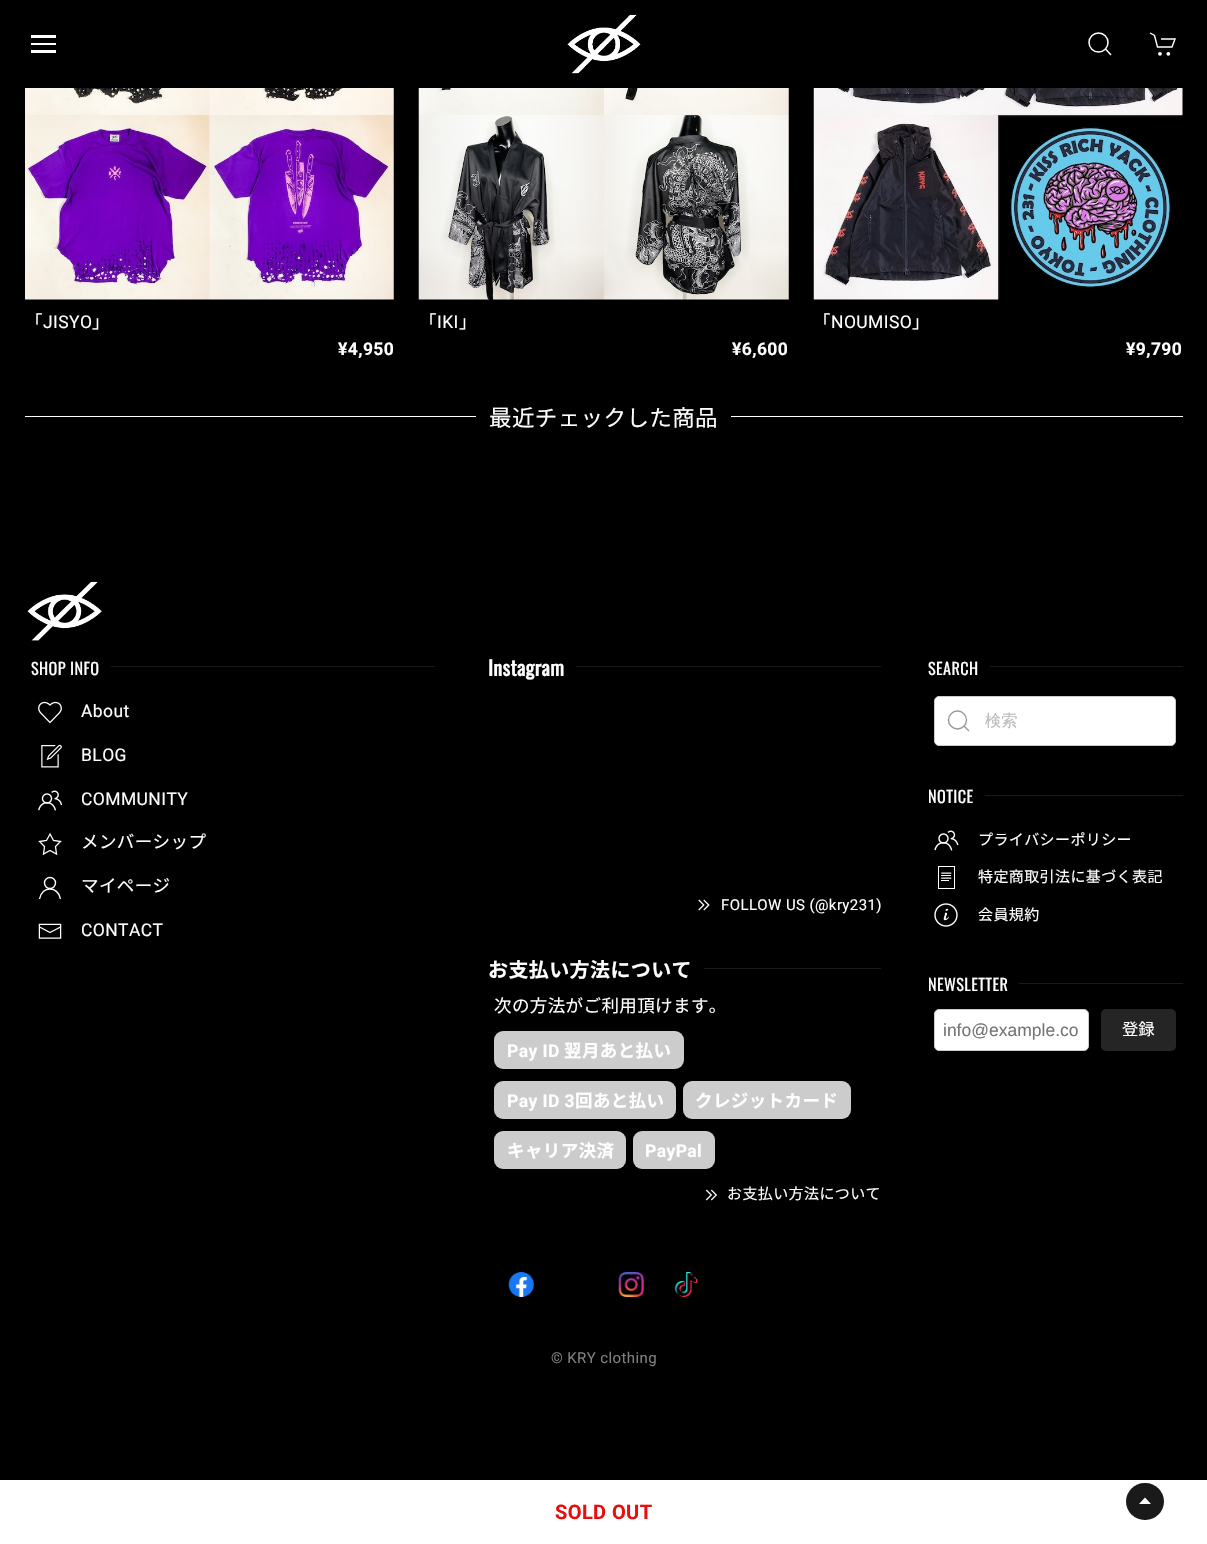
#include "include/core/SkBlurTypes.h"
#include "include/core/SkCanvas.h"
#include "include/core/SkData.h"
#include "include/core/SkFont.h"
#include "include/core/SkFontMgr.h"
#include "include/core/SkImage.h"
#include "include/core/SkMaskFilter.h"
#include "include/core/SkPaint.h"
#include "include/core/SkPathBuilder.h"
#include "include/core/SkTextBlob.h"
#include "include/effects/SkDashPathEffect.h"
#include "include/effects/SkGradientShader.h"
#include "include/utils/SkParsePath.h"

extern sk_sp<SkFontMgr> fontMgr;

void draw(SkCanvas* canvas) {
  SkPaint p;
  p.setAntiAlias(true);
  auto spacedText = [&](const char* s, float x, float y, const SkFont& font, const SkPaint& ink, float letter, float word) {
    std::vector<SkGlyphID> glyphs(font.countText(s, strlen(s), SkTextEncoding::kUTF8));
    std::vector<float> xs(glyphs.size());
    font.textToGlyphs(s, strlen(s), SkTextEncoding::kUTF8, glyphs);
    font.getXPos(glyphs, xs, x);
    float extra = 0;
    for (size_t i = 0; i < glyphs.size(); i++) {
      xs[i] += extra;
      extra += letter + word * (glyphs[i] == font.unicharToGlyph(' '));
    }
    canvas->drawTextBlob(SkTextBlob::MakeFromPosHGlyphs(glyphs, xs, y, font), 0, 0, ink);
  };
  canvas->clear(SK_ColorBLACK);
  p.setColor(SK_ColorWHITE);
  canvas->drawRect(SkRect::MakeLTRB(31, 43, 56, 45), p);
  canvas->drawRect(SkRect::MakeLTRB(31, 35, 56, 38), p);
  canvas->drawRect(SkRect::MakeLTRB(31, 50, 56, 53), p);
  canvas->drawImageRect(SkImages::DeferredFromEncodedData(SkData::MakeFromFileName("images/1.png")), SkRect::MakeLTRB(567, 14, 641, 74), SkSamplingOptions());
  p.setStyle(SkPaint::kStroke_Style);
  p.setStrokeWidth(1.5f);
  canvas->drawCircle(1098.5f, 42.5f, 9.5f, p);
  canvas->drawPath(SkPathBuilder().moveTo(1105.5f, 49).lineTo(1111, 55).close().detach(), p);
  p.setStrokeWidth(1.4f);
  canvas->drawPath(SkPathBuilder().moveTo(1150, 33).lineTo(1154.5f, 35.5f).lineTo(1157.5f, 47).lineTo(1172, 47).lineTo(1175, 39).lineTo(1161, 39).detach(), p);
  p.setStyle(SkPaint::kFill_Style);
  canvas->drawCircle(1160, 53.8f, 1.9f, p);
  canvas->drawCircle(1168.3f, 53.8f, 1.9f, p);
  canvas->drawImageRect(SkImages::DeferredFromEncodedData(SkData::MakeFromFileName("images/2.png")), SkRect::MakeLTRB(25, 88, 394, 300), SkSamplingOptions());
  canvas->drawImageRect(SkImages::DeferredFromEncodedData(SkData::MakeFromFileName("images/3.png")), SkRect::MakeLTRB(418, 88, 789, 300), SkSamplingOptions());
  canvas->drawImageRect(SkImages::DeferredFromEncodedData(SkData::MakeFromFileName("images/4.png")), SkRect::MakeLTRB(813, 88, 1183, 300), SkSamplingOptions());
  canvas->drawRect(SkRect::MakeLTRB(25, 416, 476, 417), p);
  canvas->drawRect(SkRect::MakeLTRB(731, 416, 1183, 417), p);
  canvas->drawImageRect(SkImages::DeferredFromEncodedData(SkData::MakeFromFileName("images/5.png")), SkRect::MakeLTRB(27, 581, 102, 641), SkSamplingOptions());
  p.setColor(SkColorSetRGB(26, 26, 26));
  canvas->drawRect(SkRect::MakeLTRB(111, 666, 435, 667), p);
  canvas->drawImageRect(SkImages::DeferredFromEncodedData(SkData::MakeFromFileName("images/6.png")), SkRect::MakeLTRB(38, 701, 62, 724), SkSamplingOptions());
  canvas->drawImageRect(SkImages::DeferredFromEncodedData(SkData::MakeFromFileName("images/7.png")), SkRect::MakeLTRB(41, 744, 62, 768), SkSamplingOptions());
  canvas->drawImageRect(SkImages::DeferredFromEncodedData(SkData::MakeFromFileName("images/8.png")), SkRect::MakeLTRB(38, 790, 63, 811), SkSamplingOptions());
  p.setStyle(SkPaint::kStroke_Style);
  p.setStrokeWidth(1.3f);
  p.setColor(SK_ColorWHITE);
  canvas->drawPath(SkPathBuilder().moveTo(50, 834).lineTo(53.5f, 840.5f).lineTo(60.5f, 841.5f).lineTo(55.5f, 846.5f).lineTo(56.5f, 854).lineTo(50, 850.5f).lineTo(43.5f, 854).lineTo(44.5f, 846.5f).lineTo(39.5f, 841.5f).lineTo(46.5f, 840.5f).close().detach(), p);
  p.setStrokeWidth(1.4f);
  canvas->drawCircle(50, 883, 5.5f, p);
  canvas->drawPath(SkPathBuilder().moveTo(39.5f, 899).cubicTo(41.5f, 885.5f, 58.5f, 886, 60.5f, 899).detach(), p);
  canvas->drawImageRect(SkImages::DeferredFromEncodedData(SkData::MakeFromFileName("images/9.png")), SkRect::MakeLTRB(38, 923, 62, 939), SkSamplingOptions());
  p.setStyle(SkPaint::kFill_Style);
  p.setColor(SkColorSetRGB(26, 26, 26));
  canvas->drawRect(SkRect::MakeLTRB(576, 666, 881, 667), p);
  canvas->drawImageRect(SkImages::DeferredFromEncodedData(SkData::MakeFromFileName("images/10.png")), SkRect::MakeLTRB(698, 899, 710, 911), SkSamplingOptions());
  canvas->drawRect(SkRect::MakeLTRB(704, 968, 881, 969), p);
  p.setColor(SkColorSetRGB(204, 204, 204));
  canvas->drawRoundRect(SkRect::MakeLTRB(494, 1031, 684, 1069), 9, 9, p);
  canvas->drawRoundRect(SkRect::MakeLTRB(494, 1081, 676, 1119), 9, 9, p);
  canvas->drawRoundRect(SkRect::MakeLTRB(683, 1081, 851, 1119), 9, 9, p);
  canvas->drawRoundRect(SkRect::MakeLTRB(494, 1131, 626, 1169), 9, 9, p);
  canvas->drawRoundRect(SkRect::MakeLTRB(633, 1131, 715, 1169), 9, 9, p);
  canvas->drawImageRect(SkImages::DeferredFromEncodedData(SkData::MakeFromFileName("images/11.png")), SkRect::MakeLTRB(705, 1189, 717, 1201), SkSamplingOptions());
  p.setColor(SkColorSetRGB(26, 26, 26));
  canvas->drawRect(SkRect::MakeLTRB(990, 666, 1183, 667), p);
  p.setColor(SK_ColorWHITE);
  canvas->drawRoundRect(SkRect::MakeLTRB(934.5f, 696.5f, 1175.5f, 745.5f), 4.5f, 4.5f, p);
  p.setStyle(SkPaint::kStroke_Style);
  p.setStrokeWidth(1);
  p.setColor(SkColorSetRGB(204, 204, 204));
  canvas->drawRoundRect(SkRect::MakeLTRB(934.5f, 696.5f, 1175.5f, 745.5f), 4.5f, 4.5f, p);
  p.setStrokeWidth(1.4f);
  p.setColor(SkColorSetRGB(153, 153, 153));
  canvas->drawCircle(957.5f, 720, 9, p);
  canvas->drawPath(SkPathBuilder().moveTo(964, 726).lineTo(969, 731).close().detach(), p);
  p.setStyle(SkPaint::kFill_Style);
  p.setColor(SkColorSetRGB(26, 26, 26));
  canvas->drawRect(SkRect::MakeLTRB(985, 795, 1183, 796), p);
  canvas->drawImageRect(SkImages::DeferredFromEncodedData(SkData::MakeFromFileName("images/12.png")), SkRect::MakeLTRB(934, 830, 959, 851), SkSamplingOptions());
  canvas->drawImageRect(SkImages::DeferredFromEncodedData(SkData::MakeFromFileName("images/13.png")), SkRect::MakeLTRB(938, 866, 955, 889), SkSamplingOptions());
  canvas->drawImageRect(SkImages::DeferredFromEncodedData(SkData::MakeFromFileName("images/14.png")), SkRect::MakeLTRB(934, 903, 958, 927), SkSamplingOptions());
  canvas->drawRect(SkRect::MakeLTRB(1019, 983, 1183, 984), p);
  p.setColor(SK_ColorWHITE);
  canvas->drawRoundRect(SkRect::MakeLTRB(934.5f, 1009.5f, 1088.5f, 1050.5f), 4.5f, 4.5f, p);
  p.setStyle(SkPaint::kStroke_Style);
  p.setStrokeWidth(1);
  p.setColor(SkColorSetRGB(204, 204, 204));
  canvas->drawRoundRect(SkRect::MakeLTRB(934.5f, 1009.5f, 1088.5f, 1050.5f), 4.5f, 4.5f, p);
  p.setStyle(SkPaint::kFill_Style);
  p.setColor(SkColorSetRGB(37, 37, 37));
  canvas->drawRoundRect(SkRect::MakeLTRB(1101, 1009, 1176, 1051), 5, 5, p);
  canvas->drawImageRect(SkImages::DeferredFromEncodedData(SkData::MakeFromFileName("images/15.png")), SkRect::MakeLTRB(508, 1272, 534, 1297), SkSamplingOptions());
  canvas->drawImageRect(SkImages::DeferredFromEncodedData(SkData::MakeFromFileName("images/16.png")), SkRect::MakeLTRB(618, 1272, 644, 1297), SkSamplingOptions());
  canvas->drawImageRect(SkImages::DeferredFromEncodedData(SkData::MakeFromFileName("images/17.png")), SkRect::MakeLTRB(674, 1272, 698, 1297), SkSamplingOptions());
  p.setColor(SK_ColorWHITE);
  canvas->drawRect(SkRect::MakeLTRB(0, 1480, 1207, 1544), p);
  p.setColor(SkColorSetRGB(26, 26, 26));
  canvas->drawRoundRect(SkRect::MakeLTRB(1126, 1483, 1164, 1520), 18.5f, 18.5f, p);
  p.setColor(SK_ColorWHITE);
  canvas->drawPath(SkPathBuilder().moveTo(1139, 1504).lineTo(1145, 1497.5f).lineTo(1151, 1504).close().detach(), p);
  SkFont font1(fontMgr->matchFamilyStyle("Noto Sans JP", SkFontStyle::Normal()), 17.5f);
  font1.setSubpixel(true);
  spacedText("「", 25, 328, font1, p, 0.4f, 0);
  SkFont font2(fontMgr->matchFamilyStyle("Roboto", SkFontStyle::Normal()), 17.5f);
  font2.setSubpixel(true);
  spacedText("JISYO", 43, 328, font2, p, 0.4f, 0);
  spacedText("」", 92, 328, font1, p, 0.4f, 0);
  SkFont font3(fontMgr->matchFamilyStyle("Roboto", SkFontStyle::Bold()), 17.5f);
  font3.setSubpixel(true);
  spacedText("¥4,950", 338, 355, font3, p, 0.4f, 0);
  spacedText("「", 419, 328, font1, p, 0.4f, 0);
  spacedText("IKI", 437, 328, font2, p, 0.4f, 0);
  spacedText("」", 459, 328, font1, p, 0.4f, 0);
  spacedText("¥6,600", 732, 355, font3, p, 0.4f, 0);
  spacedText("「", 813, 328, font1, p, 0.4f, 0);
  spacedText("NOUMISO", 831, 328, font2, p, 0.4f, 0);
  spacedText("」", 912, 328, font1, p, 0.4f, 0);
  spacedText("¥9,790", 1126, 355, font3, p, 0.4f, 0);
  SkFont font4(fontMgr->matchFamilyStyle("Noto Sans JP", SkFontStyle::Normal()), 22.5f);
  font4.setSubpixel(true);
  spacedText("最近チェックした商品", 489, 426, font4, p, 0.4f, 0);
  SkFont font5(fontMgr->matchFamilyStyle("Oswald", SkFontStyle::Normal()), 16.25f);
  font5.setSubpixel(true);
  spacedText("SHOP INFO", 31, 675, font5, p, 0.4f, 0);
  spacedText("About", 81, 717, font2, p, 0.4f, 0);
  spacedText("BLOG", 81, 761, font2, p, 0.4f, 0);
  spacedText("COMMUNITY", 81, 805, font2, p, 0.4f, 0);
  spacedText("メンバーシップ", 81, 848, font1, p, 0.4f, 0);
  spacedText("マイページ", 81, 892, font1, p, 0.4f, 0);
  spacedText("CONTACT", 81, 936, font2, p, 0.4f, 0);
  SkFont font6(fontMgr->matchFamilyStyle("Oswald", SkFontStyle::Bold()), 20);
  font6.setSubpixel(true);
  spacedText("Instagram", 488, 676, font6, p, 0.4f, 0);
  SkFont font7(fontMgr->matchFamilyStyle("Roboto", SkFontStyle::Normal()), 15);
  font7.setSubpixel(true);
  spacedText("FOLLOW US (@kry231)", 721, 910, font7, p, 0.4f, 0);
  SkFont font8(fontMgr->matchFamilyStyle("Noto Sans JP", SkFontStyle::Bold()), 20);
  font8.setSubpixel(true);
  spacedText("お支払い方法について", 488, 977, font8, p, 0.4f, 0);
  spacedText("次の方法がご利用頂けます。", 494, 1012, font1, p, 0.4f, 0);
  spacedText("Pay ID", 507, 1057, font3, p, 0.4f, 0);
  SkFont font9(fontMgr->matchFamilyStyle("Noto Sans JP", SkFontStyle::Bold()), 17.5f);
  font9.setSubpixel(true);
  spacedText("翌月あと払い", 564, 1057, font9, p, 0.4f, 0);
  spacedText("Pay ID 3", 507, 1107, font3, p, 0.4f, 0);
  spacedText("回あと払い", 575, 1107, font9, p, 0.4f, 0);
  spacedText("クレジットカード", 695, 1107, font9, p, 0.4f, 0);
  spacedText("キャリア決済", 507, 1157, font9, p, 0.4f, 0);
  spacedText("PayPal", 645, 1157, font3, p, 0.4f, 0);
  SkFont font10(fontMgr->matchFamilyStyle("Noto Sans JP", SkFontStyle::Normal()), 15);
  font10.setSubpixel(true);
  spacedText("お支払い方法について", 727, 1199, font10, p, 0.4f, 0);
  spacedText("SEARCH", 928, 675, font5, p, 0.4f, 0);
  SkFont font11(fontMgr->matchFamilyStyle("WenQuanYi Zen Hei", SkFontStyle(500, SkFontStyle::kNormal_Width, SkFontStyle::kUpright_Slant)), 16.25f);
  font11.setSubpixel(true);
  p.setColor(SkColorSetRGB(187, 187, 187));
  canvas->drawString("検索", 985, 726, font11, p);
  p.setColor(SK_ColorWHITE);
  spacedText("NOTICE", 928, 803, font5, p, 0.4f, 0);
  spacedText("プライバシーポリシー", 978, 845, font10, p, 0.4f, 0);
  spacedText("特定商取引法に基づく表記", 978, 882, font10, p, 0.4f, 0);
  spacedText("会員規約", 978, 920, font10, p, 0.4f, 0);
  spacedText("NEWSLETTER", 928, 991, font5, p, 0.4f, 0);
  SkFont font12(fontMgr->matchFamilyStyle("Liberation Sans", SkFontStyle::Normal()), 17.5f);
  font12.setSubpixel(true);
  p.setColor(SkColorSetRGB(117, 117, 117));
  canvas->drawString("info@example.co", 943, 1036, font12, p);
  SkFont font13(fontMgr->matchFamilyStyle("Noto Sans JP", SkFontStyle::Normal()), 16.25f);
  font13.setSubpixel(true);
  p.setColor(SK_ColorWHITE);
  canvas->drawString("登録", 1122, 1035, font13, p);
  p.setColor(SkColorSetRGB(128, 128, 128));
  spacedText("© KRY clothing", 551, 1363, font7, p, 0.4f, 0);
  SkFont font14(fontMgr->matchFamilyStyle("Roboto", SkFontStyle::Bold()), 20);
  font14.setSubpixel(true);
  p.setColor(SkColorSetRGB(229, 15, 13));
  spacedText("SOLD OUT", 555, 1519, font14, p, 0.4f, 0);
}
